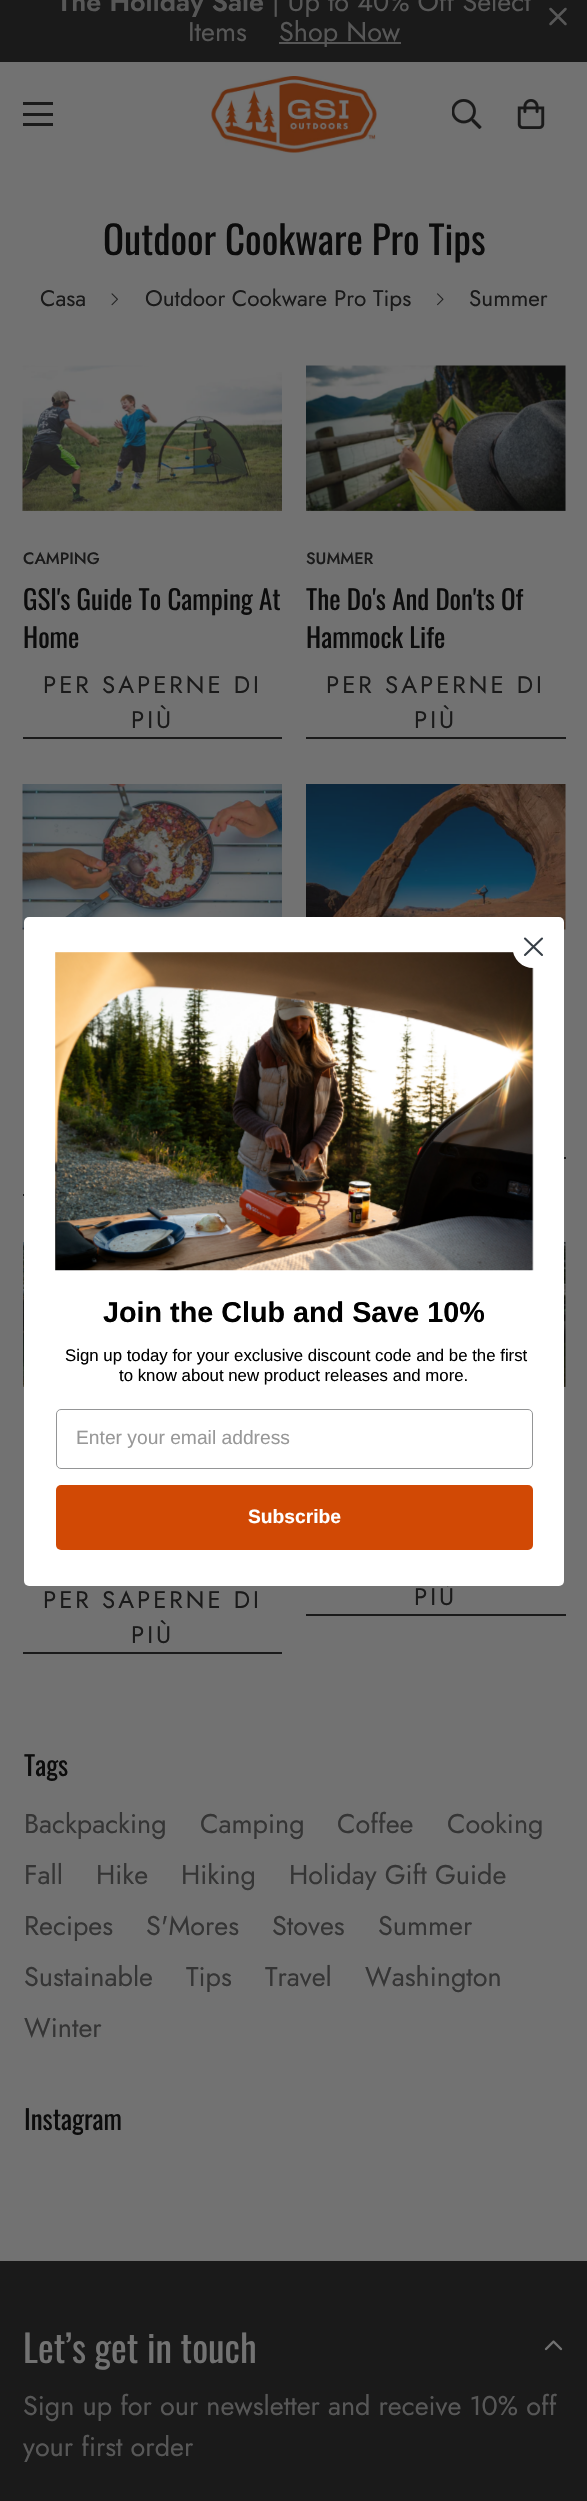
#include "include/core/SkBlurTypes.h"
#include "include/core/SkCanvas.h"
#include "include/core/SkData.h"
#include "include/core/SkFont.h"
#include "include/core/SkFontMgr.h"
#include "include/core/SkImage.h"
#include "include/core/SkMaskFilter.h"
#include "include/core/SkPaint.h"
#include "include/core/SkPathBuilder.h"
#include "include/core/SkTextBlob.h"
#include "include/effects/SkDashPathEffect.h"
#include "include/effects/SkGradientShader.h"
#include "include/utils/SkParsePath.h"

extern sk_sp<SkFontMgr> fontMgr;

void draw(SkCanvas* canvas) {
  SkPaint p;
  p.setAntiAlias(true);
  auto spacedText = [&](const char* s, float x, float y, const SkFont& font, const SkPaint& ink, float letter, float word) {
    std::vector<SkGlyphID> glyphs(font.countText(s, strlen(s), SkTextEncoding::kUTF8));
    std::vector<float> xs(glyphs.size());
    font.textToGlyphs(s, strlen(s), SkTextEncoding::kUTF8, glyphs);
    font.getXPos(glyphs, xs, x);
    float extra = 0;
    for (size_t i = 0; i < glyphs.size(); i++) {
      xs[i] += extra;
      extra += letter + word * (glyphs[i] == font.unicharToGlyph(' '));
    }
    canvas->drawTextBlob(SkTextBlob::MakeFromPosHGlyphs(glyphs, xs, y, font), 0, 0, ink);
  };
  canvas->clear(SkColorSetRGB(114, 114, 114));
  p.setColor(SkColorSetRGB(26, 26, 26));
  canvas->drawRect(SkRect::MakeLTRB(0, 0, 587, 62), p);
  p.setColor(SkColorSetRGB(87, 87, 87));
  canvas->drawRect(SkRect::MakeLTRB(279, 42, 401, 44), p);
  p.setStyle(SkPaint::kStroke_Style);
  p.setStrokeWidth(2.5f);
  p.setStrokeCap(SkPaint::kRound_Cap);
  p.setStrokeJoin(SkPaint::kRound_Join);
  canvas->drawPath(SkPathBuilder().moveTo(550.5f, 24).lineTo(565.5f, 9).moveTo(550.5f, 9).lineTo(565.5f, 24).detach(), p);
  p.setStyle(SkPaint::kFill_Style);
  p.setColor(SkColorSetRGB(26, 26, 26));
  canvas->drawRect(SkRect::MakeLTRB(23, 113, 53, 116), p);
  canvas->drawRect(SkRect::MakeLTRB(23, 102, 53, 105), p);
  canvas->drawRect(SkRect::MakeLTRB(23, 123, 53, 126), p);
  canvas->drawImageRect(SkImages::DeferredFromEncodedData(SkData::MakeFromFileName("images/1.png")), SkRect::MakeLTRB(211, 76, 377, 153), SkSamplingOptions());
  canvas->drawImageRect(SkImages::DeferredFromEncodedData(SkData::MakeFromFileName("images/2.png")), SkRect::MakeLTRB(452, 99, 482, 129), SkSamplingOptions());
  canvas->drawImageRect(SkImages::DeferredFromEncodedData(SkData::MakeFromFileName("images/3.png")), SkRect::MakeLTRB(517, 99, 545, 129), SkSamplingOptions());
  canvas->drawImageRect(SkImages::DeferredFromEncodedData(SkData::MakeFromFileName("images/4.png")), SkRect::MakeLTRB(111, 293, 118, 306), SkSamplingOptions());
  canvas->drawImageRect(SkImages::DeferredFromEncodedData(SkData::MakeFromFileName("images/5.png")), SkRect::MakeLTRB(437, 293, 444, 306), SkSamplingOptions());
  canvas->drawImageRect(SkImages::DeferredFromEncodedData(SkData::MakeFromFileName("images/6.png")), SkRect::MakeLTRB(22, 365, 282, 511), SkSamplingOptions());
  canvas->drawRect(SkRect::MakeLTRB(23, 737, 282, 739), p);
  canvas->drawImageRect(SkImages::DeferredFromEncodedData(SkData::MakeFromFileName("images/7.png")), SkRect::MakeLTRB(306, 365, 566, 511), SkSamplingOptions());
  canvas->drawRect(SkRect::MakeLTRB(306, 737, 566, 739), p);
  canvas->drawImageRect(SkImages::DeferredFromEncodedData(SkData::MakeFromFileName("images/8.png")), SkRect::MakeLTRB(22, 784, 282, 930), SkSamplingOptions());
  canvas->drawRect(SkRect::MakeLTRB(23, 1194, 24, 1196), p);
  canvas->drawImageRect(SkImages::DeferredFromEncodedData(SkData::MakeFromFileName("images/9.png")), SkRect::MakeLTRB(306, 784, 566, 930), SkSamplingOptions());
  canvas->drawRect(SkRect::MakeLTRB(564, 1157, 566, 1159), p);
  canvas->drawImageRect(SkImages::DeferredFromEncodedData(SkData::MakeFromFileName("images/10.png")), SkRect::MakeLTRB(23, 1242, 24, 1387), SkSamplingOptions());
  canvas->drawRect(SkRect::MakeLTRB(23, 1652, 282, 1654), p);
  canvas->drawImageRect(SkImages::DeferredFromEncodedData(SkData::MakeFromFileName("images/11.png")), SkRect::MakeLTRB(564, 1242, 566, 1387), SkSamplingOptions());
  canvas->drawRect(SkRect::MakeLTRB(306, 1614, 566, 1616), p);
  canvas->drawRect(SkRect::MakeLTRB(0, 2261, 587, 2501), p);
  canvas->drawImageRect(SkImages::DeferredFromEncodedData(SkData::MakeFromFileName("images/13.png")), SkRect::MakeLTRB(544, 2340, 563, 2351), SkSamplingOptions());
  SkFont font1(fontMgr->matchFamilyStyle("Jost", SkFontStyle(600, SkFontStyle::kNormal_Width, SkFontStyle::kUpright_Slant)), 27);
  font1.setSubpixel(true);
  p.setColor(SkColorSetRGB(87, 87, 87));
  canvas->drawString("The Holiday Sale", 57, 11, font1, p);
  SkFont font2(fontMgr->matchFamilyStyle("Jost", SkFontStyle::Normal()), 27);
  font2.setSubpixel(true);
  canvas->drawString("| Up to 40% Off Select", 272, 11, font2, p);
  canvas->drawString("Items", 188, 41, font2, p);
  canvas->drawString("Shop Now", 279, 41, font2, p);
  SkFont font3(fontMgr->matchFamilyStyle("Oswald", SkFontStyle::Normal()), 39);
  font3.setSubpixel(true);
  p.setColor(SkColorSetRGB(12, 12, 12));
  canvas->drawString("Outdoor Cookware Pro Tips", 103, 255, font3, p);
  SkFont font4(fontMgr->matchFamilyStyle("Jost", SkFontStyle::Normal()), 22.5f);
  font4.setSubpixel(true);
  p.setColor(SkColorSetRGB(26, 26, 26));
  canvas->drawString("Casa", 40, 306, font4, p);
  canvas->drawString("Outdoor Cookware Pro Tips", 145, 306, font4, p);
  canvas->drawString("Summer", 469, 306, font4, p);
  SkFont font5(fontMgr->matchFamilyStyle("Jost", SkFontStyle(500, SkFontStyle::kNormal_Width, SkFontStyle::kUpright_Slant)), 16.5f);
  font5.setSubpixel(true);
  canvas->drawString("CAMPING", 23, 564, font5, p);
  SkFont font6(fontMgr->matchFamilyStyle("Oswald", SkFontStyle::Normal()), 27);
  font6.setSubpixel(true);
  p.setColor(SkColorSetRGB(12, 12, 12));
  canvas->drawString("GSI's Guide To Camping At", 23, 610, font6, p);
  canvas->drawString("Home", 23, 648, font6, p);
  SkFont font7(fontMgr->matchFamilyStyle("Jost", SkFontStyle::Normal()), 24);
  font7.setSubpixel(true);
  p.setColor(SkColorSetRGB(26, 26, 26));
  spacedText("PER SAPERNE DI", 43, 693, font7, p, 3, 0);
  spacedText("PIÙ", 131, 728, font7, p, 3, 0);
  canvas->drawString("SUMMER", 306, 564, font5, p);
  p.setColor(SkColorSetRGB(12, 12, 12));
  canvas->drawString("The Do's And Don'ts Of", 306, 610, font6, p);
  canvas->drawString("Hammock Life", 306, 648, font6, p);
  p.setColor(SkColorSetRGB(26, 26, 26));
  spacedText("PER SAPERNE DI", 326, 693, font7, p, 3, 0);
  spacedText("PIÙ", 414, 728, font7, p, 3, 0);
  spacedText("PER SAPERNE DI", 43, 1608, font7, p, 3, 0);
  spacedText("PIÙ", 131, 1643, font7, p, 3, 0);
  spacedText("PIÙ", 414, 1605, font7, p, 3, 0);
  p.setColor(SkColorSetRGB(12, 12, 12));
  canvas->drawString("Tags", 24, 1776, font6, p);
  p.setColor(SkColorSetRGB(53, 53, 53));
  canvas->drawString("Backpacking", 24, 1833, font2, p);
  canvas->drawString("Camping", 200, 1833, font2, p);
  canvas->drawString("Coffee", 337, 1833, font2, p);
  canvas->drawString("Cooking", 447, 1833, font2, p);
  canvas->drawString("Fall", 24, 1884, font2, p);
  canvas->drawString("Hike", 96, 1884, font2, p);
  canvas->drawString("Hiking", 181, 1884, font2, p);
  canvas->drawString("Holiday Gift Guide", 289, 1884, font2, p);
  canvas->drawString("Recipes", 24, 1935, font2, p);
  canvas->drawString("S'Mores", 146, 1935, font2, p);
  canvas->drawString("Stoves", 272, 1935, font2, p);
  canvas->drawString("Summer", 378, 1935, font2, p);
  canvas->drawString("Sustainable", 24, 1986, font2, p);
  canvas->drawString("Tips", 186, 1986, font2, p);
  canvas->drawString("Travel", 265, 1986, font2, p);
  canvas->drawString("Washington", 365, 1986, font2, p);
  canvas->drawString("Winter", 24, 2037, font2, p);
  p.setColor(SkColorSetRGB(12, 12, 12));
  canvas->drawString("Instagram", 24, 2130, font6, p);
  p.setColor(SK_ColorWHITE);
  canvas->drawRoundRect(SkRect::MakeLTRB(24, 917, 564, 1586), 5, 5, p);
  canvas->drawImageRect(SkImages::DeferredFromEncodedData(SkData::MakeFromFileName("images/12.png")), SkRect::MakeLTRB(55, 952, 534, 1271), SkSamplingOptions());
  canvas->drawCircle(533.5f, 947, 20, p);
  p.setStyle(SkPaint::kStroke_Style);
  p.setStrokeWidth(2.1f);
  p.setStrokeCap(SkPaint::kButt_Cap);
  p.setStrokeJoin(SkPaint::kMiter_Join);
  canvas->drawCircle(533.5f, 947, 20, p);
  p.setStrokeCap(SkPaint::kRound_Cap);
  p.setStrokeJoin(SkPaint::kRound_Join);
  p.setColor(SkColorSetRGB(55, 63, 71));
  canvas->drawPath(SkPathBuilder().moveTo(525, 938.5f).lineTo(542, 955).moveTo(525, 955).lineTo(542, 938.5f).close().detach(), p);
  SkFont font8(fontMgr->matchFamilyStyle("Liberation Sans", SkFontStyle::Bold()), 28.75f);
  font8.setSubpixel(true);
  p.setStyle(SkPaint::kFill_Style);
  p.setColor(SK_ColorBLACK);
  canvas->drawString("Join the Club and Save 10%", 103, 1322, font8, p);
  SkFont font9(fontMgr->matchFamilyStyle("Liberation Sans", SkFontStyle::Normal()), 16.8f);
  font9.setSubpixel(true);
  canvas->drawString("Sign up today for your exclusive discount code and be the first", 65, 1361, font9, p);
  canvas->drawString("to know about new product releases and more.", 119, 1381, font9, p);
  p.setStyle(SkPaint::kStroke_Style);
  p.setStrokeWidth(1);
  p.setStrokeCap(SkPaint::kButt_Cap);
  p.setStrokeJoin(SkPaint::kMiter_Join);
  p.setColor(SkColorSetRGB(148, 149, 150));
  canvas->drawRoundRect(SkRect::MakeLTRB(56.5f, 1409.5f, 532.5f, 1468.5f), 4.5f, 4.5f, p);
  SkFont font10(fontMgr->matchFamilyStyle("Liberation Sans", SkFontStyle::Normal()), 19.25f);
  font10.setSubpixel(true);
  p.setStyle(SkPaint::kFill_Style);
  p.setColor(SkColorSetRGB(152, 152, 152));
  canvas->drawString("Enter your email address", 76, 1444, font10, p);
  p.setColor(SkColorSetRGB(209, 73, 5));
  canvas->drawRoundRect(SkRect::MakeLTRB(56, 1485, 533, 1550), 5, 5, p);
  SkFont font11(fontMgr->matchFamilyStyle("Liberation Sans", SkFontStyle::Bold()), 19.25f);
  font11.setSubpixel(true);
  p.setColor(SK_ColorWHITE);
  canvas->drawString("Subscribe", 248, 1523, font11, p);
  SkFont font12(fontMgr->matchFamilyStyle("Oswald", SkFontStyle::Normal()), 37.5f);
  font12.setSubpixel(true);
  p.setColor(SkColorSetRGB(114, 114, 114));
  canvas->drawString("Let’s get in touch", 23, 2363, font12, p);
  p.setColor(SkColorSetRGB(87, 87, 87));
  canvas->drawString("Sign up for our newsletter and receive 10% off", 23, 2415, font2, p);
  canvas->drawString("your first order", 23, 2456, font2, p);
}
